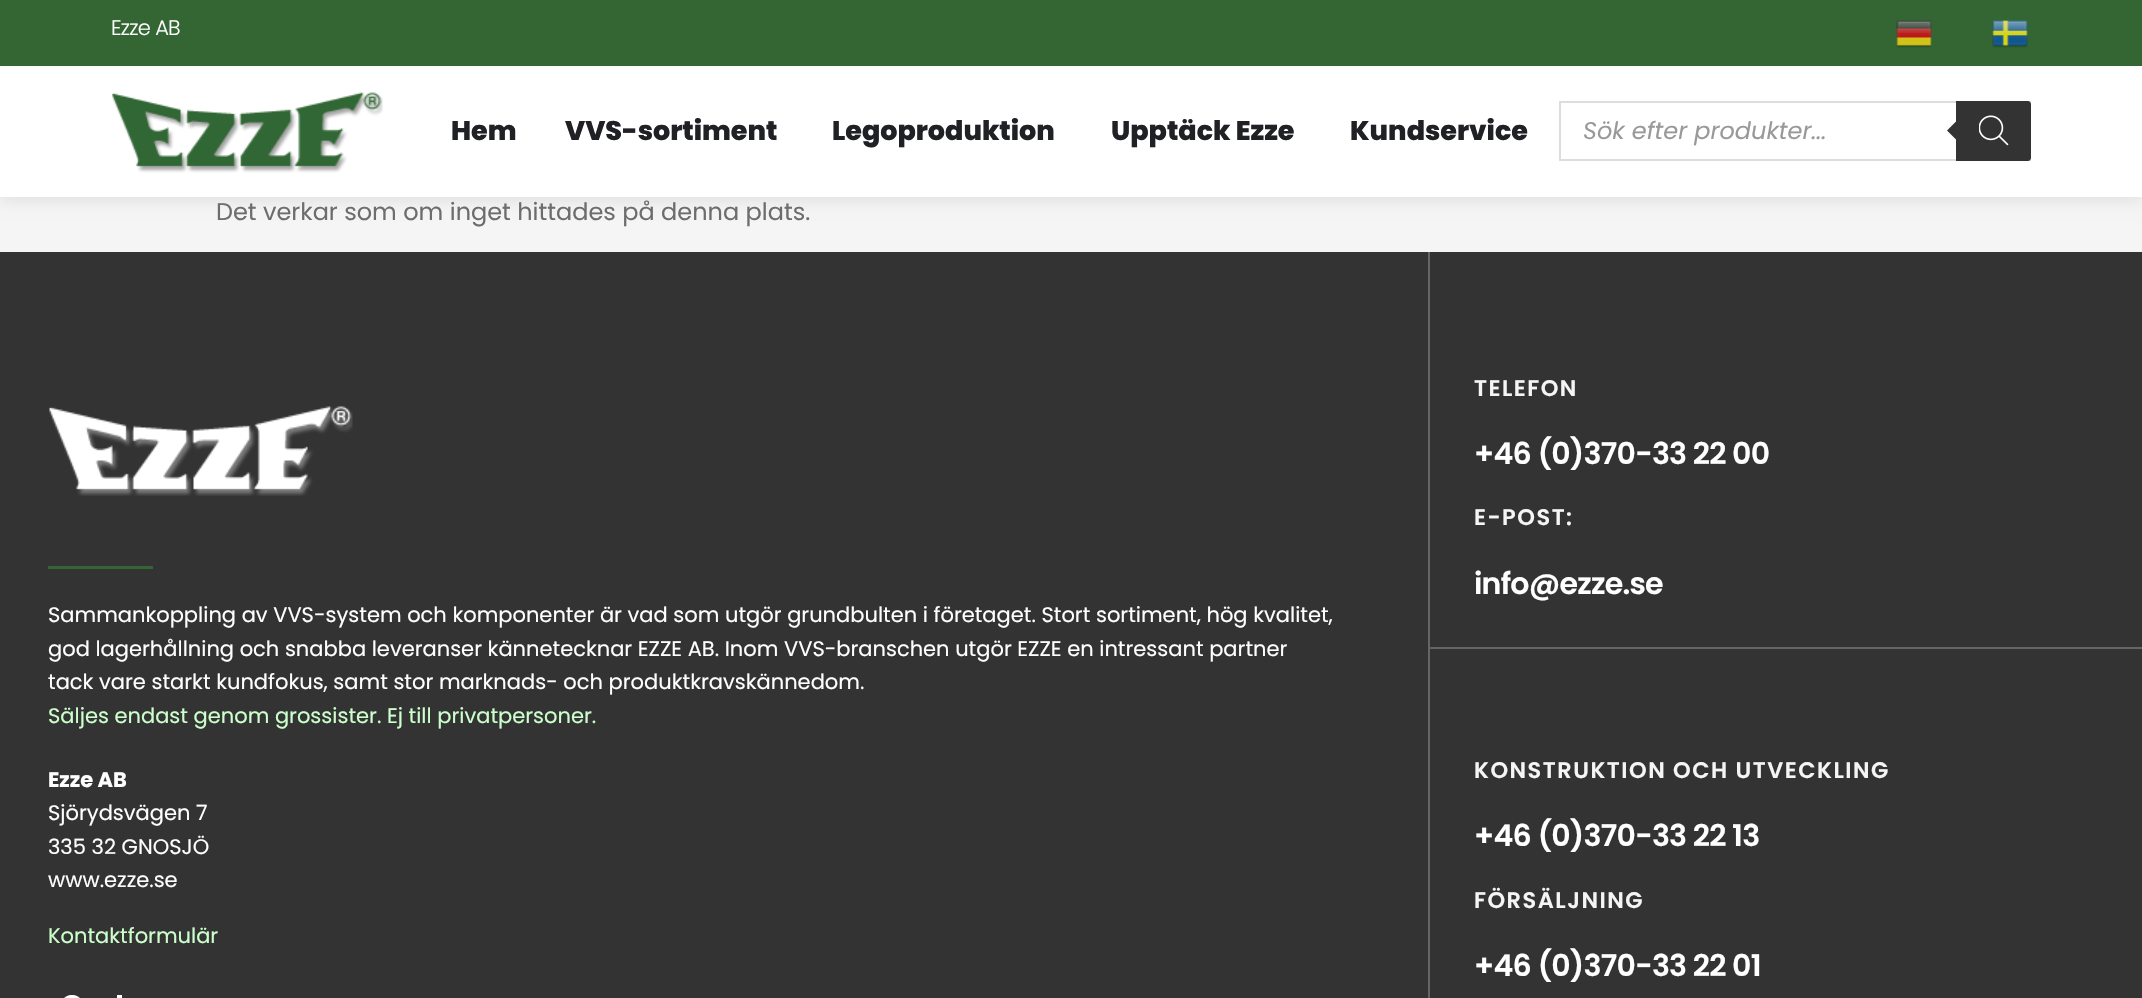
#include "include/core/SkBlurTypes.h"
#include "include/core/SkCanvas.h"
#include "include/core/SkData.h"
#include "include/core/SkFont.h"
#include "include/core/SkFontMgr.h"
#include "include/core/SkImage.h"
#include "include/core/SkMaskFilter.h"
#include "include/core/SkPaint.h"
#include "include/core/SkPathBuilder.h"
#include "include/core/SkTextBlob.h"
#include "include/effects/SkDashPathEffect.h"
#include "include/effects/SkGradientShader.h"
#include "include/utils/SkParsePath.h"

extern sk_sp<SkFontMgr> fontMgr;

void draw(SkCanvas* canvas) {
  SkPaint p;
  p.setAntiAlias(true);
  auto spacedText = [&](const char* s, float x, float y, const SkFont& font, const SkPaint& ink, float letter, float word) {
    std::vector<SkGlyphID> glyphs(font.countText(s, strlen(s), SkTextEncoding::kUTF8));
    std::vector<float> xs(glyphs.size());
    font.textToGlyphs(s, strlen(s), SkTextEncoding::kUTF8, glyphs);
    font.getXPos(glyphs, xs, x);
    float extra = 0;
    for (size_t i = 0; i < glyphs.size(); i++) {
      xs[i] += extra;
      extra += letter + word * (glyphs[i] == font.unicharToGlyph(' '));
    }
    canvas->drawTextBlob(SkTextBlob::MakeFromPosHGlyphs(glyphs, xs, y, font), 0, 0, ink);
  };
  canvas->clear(SkColorSetRGB(245, 245, 245));
  p.setColor(SkColorSetARGB(23, 0, 0, 0));
  p.setMaskFilter(SkMaskFilter::MakeBlur(kNormal_SkBlurStyle, 7.5f));
  canvas->drawRect(SkRect::MakeLTRB(0, 3, 2142, 200), p);
  p.setMaskFilter(nullptr);
  p.setColor(SkColorSetRGB(51, 102, 51));
  canvas->drawRect(SkRect::MakeLTRB(0, 0, 2142, 66), p);
  canvas->drawImageRect(SkImages::DeferredFromEncodedData(SkData::MakeFromFileName("images/1.png")), SkRect::MakeLTRB(1896, 20, 1932, 48), SkSamplingOptions());
  canvas->drawImageRect(SkImages::DeferredFromEncodedData(SkData::MakeFromFileName("images/2.png")), SkRect::MakeLTRB(1992, 20, 2028, 48), SkSamplingOptions());
  p.setColor(SK_ColorWHITE);
  canvas->drawRect(SkRect::MakeLTRB(0, 66, 2142, 197), p);
  canvas->drawImageRect(SkImages::DeferredFromEncodedData(SkData::MakeFromFileName("images/3.png")), SkRect::MakeLTRB(112, 92, 383, 173), SkSamplingOptions());
  p.setStyle(SkPaint::kStroke_Style);
  p.setStrokeWidth(2);
  p.setColor(SkColorSetRGB(221, 221, 221));
  canvas->drawRect(SkRect::MakeLTRB(1560, 102, 2030, 160), p);
  p.setStyle(SkPaint::kFill_Style);
  p.setColor(SkColorSetRGB(51, 51, 51));
  canvas->drawPath(SkPathBuilder().moveTo(1956, 101).lineTo(2028, 101).cubicTo(2029.5f, 101, 2031, 102.5f, 2031, 104).lineTo(2031, 158).cubicTo(2031, 159.5f, 2029.5f, 161, 2028, 161).lineTo(1956, 161).close().detach(), p);
  canvas->drawPath(SkPathBuilder().moveTo(1959, 118.5f).lineTo(1959, 142.5f).lineTo(1947, 130.5f).close().detach(), p);
  canvas->drawImageRect(SkImages::DeferredFromEncodedData(SkData::MakeFromFileName("images/4.png")), SkRect::MakeLTRB(1979, 115, 2009, 146), SkSamplingOptions());
  canvas->drawRect(SkRect::MakeLTRB(0, 252, 2142, 998), p);
  canvas->drawImageRect(SkImages::DeferredFromEncodedData(SkData::MakeFromFileName("images/5.png")), SkRect::MakeLTRB(49, 406, 353, 496), SkSamplingOptions());
  p.setColor(SkColorSetRGB(51, 102, 51));
  canvas->drawRect(SkRect::MakeLTRB(48, 566, 153, 569), p);
  canvas->drawImageRect(SkImages::DeferredFromEncodedData(SkData::MakeFromFileName("images/6.png")), SkRect::MakeLTRB(64, 995, 80, 998), SkSamplingOptions());
  p.setColor(SK_ColorWHITE);
  canvas->drawRect(SkRect::MakeLTRB(117, 995, 122, 998), p);
  p.setColor(SkColorSetRGB(101, 101, 101));
  canvas->drawRect(SkRect::MakeLTRB(1428, 252, 1430, 998), p);
  canvas->drawRect(SkRect::MakeLTRB(1430, 647, 2142, 649), p);
  SkFont font1(fontMgr->matchFamilyStyle("Poppins", SkFontStyle(300, SkFontStyle::kNormal_Width, SkFontStyle::kUpright_Slant)), 21);
  font1.setSubpixel(true);
  p.setColor(SK_ColorWHITE);
  spacedText("Ezze AB", 111, 35, font1, p, -0.75f, 0);
  SkFont font2(fontMgr->matchFamilyStyle("Poppins", SkFontStyle(800, SkFontStyle::kNormal_Width, SkFontStyle::kUpright_Slant)), 27);
  font2.setSubpixel(true);
  p.setColor(SkColorSetRGB(31, 33, 36));
  canvas->drawString("Hem", 451, 140, font2, p);
  canvas->drawString("VVS-sortiment", 565, 140, font2, p);
  canvas->drawString("Legoproduktion", 832, 140, font2, p);
  canvas->drawString("Upptäck Ezze", 1111, 140, font2, p);
  canvas->drawString("Kundservice", 1350, 140, font2, p);
  SkFont font3(fontMgr->matchFamilyStyle("Poppins", SkFontStyle::Italic()), 24);
  font3.setSubpixel(true);
  p.setColor(SkColorSetRGB(153, 153, 153));
  canvas->drawString("Sök efter produkter...", 1583, 139, font3, p);
  SkFont font4(fontMgr->matchFamilyStyle("Poppins", SkFontStyle::Normal()), 24);
  font4.setSubpixel(true);
  p.setColor(SkColorSetRGB(109, 109, 109));
  canvas->drawString("Det verkar som om inget hittades på denna plats.", 216, 220, font4, p);
  SkFont font5(fontMgr->matchFamilyStyle("Poppins", SkFontStyle::Normal()), 21);
  font5.setSubpixel(true);
  p.setColor(SK_ColorWHITE);
  canvas->drawString("Sammankoppling av VVS-system och komponenter är vad som utgör grundbulten i företaget. Stort sortiment, hög kvalitet,", 48, 622, font5, p);
  canvas->drawString("god lagerhållning och snabba leveranser kännetecknar EZZE AB. Inom VVS-branschen utgör EZZE en intressant partner", 48, 656, font5, p);
  canvas->drawString("tack vare starkt kundfokus, samt stor marknads- och produktkravskännedom.", 48, 689, font5, p);
  p.setColor(SkColorSetRGB(204, 255, 204));
  canvas->drawString("Säljes endast genom grossister. Ej till privatpersoner.", 48, 723, font5, p);
  SkFont font6(fontMgr->matchFamilyStyle("Poppins", SkFontStyle::Bold()), 21);
  font6.setSubpixel(true);
  p.setColor(SK_ColorWHITE);
  canvas->drawString("Ezze AB", 48, 787, font6, p);
  canvas->drawString("Sjörydsvägen 7", 48, 820, font5, p);
  canvas->drawString("335 32 GNOSJÖ", 48, 854, font5, p);
  canvas->drawString("www.ezze.se", 48, 887, font5, p);
  p.setColor(SkColorSetRGB(204, 255, 204));
  canvas->drawString("Kontaktformulär", 48, 943, font5, p);
  SkFont font7(fontMgr->matchFamilyStyle("Poppins", SkFontStyle(600, SkFontStyle::kNormal_Width, SkFontStyle::kUpright_Slant)), 22.5f);
  font7.setSubpixel(true);
  p.setColor(SkColorSetRGB(245, 245, 245));
  spacedText("TELEFON", 1474, 396, font7, p, 1.5f, 0);
  SkFont font8(fontMgr->matchFamilyStyle("Poppins", SkFontStyle(600, SkFontStyle::kNormal_Width, SkFontStyle::kUpright_Slant)), 30);
  font8.setSubpixel(true);
  p.setColor(SK_ColorWHITE);
  spacedText("+46 (0)370-33 22 00", 1474, 464, font8, p, -0.75f, 0);
  p.setColor(SkColorSetRGB(245, 245, 245));
  spacedText("E-POST:", 1474, 525, font7, p, 1.5f, 0);
  p.setColor(SK_ColorWHITE);
  spacedText("info@ezze.se", 1474, 594, font8, p, -0.75f, 0);
  p.setColor(SkColorSetRGB(245, 245, 245));
  spacedText("KONSTRUKTION OCH UTVECKLING", 1474, 778, font7, p, 1.5f, 0);
  p.setColor(SK_ColorWHITE);
  spacedText("+46 (0)370-33 22 13", 1474, 846, font8, p, -0.75f, 0);
  p.setColor(SkColorSetRGB(245, 245, 245));
  spacedText("FÖRSÄLJNING", 1474, 908, font7, p, 1.5f, 0);
  p.setColor(SK_ColorWHITE);
  spacedText("+46 (0)370-33 22 01", 1474, 976, font8, p, -0.75f, 0);
}
